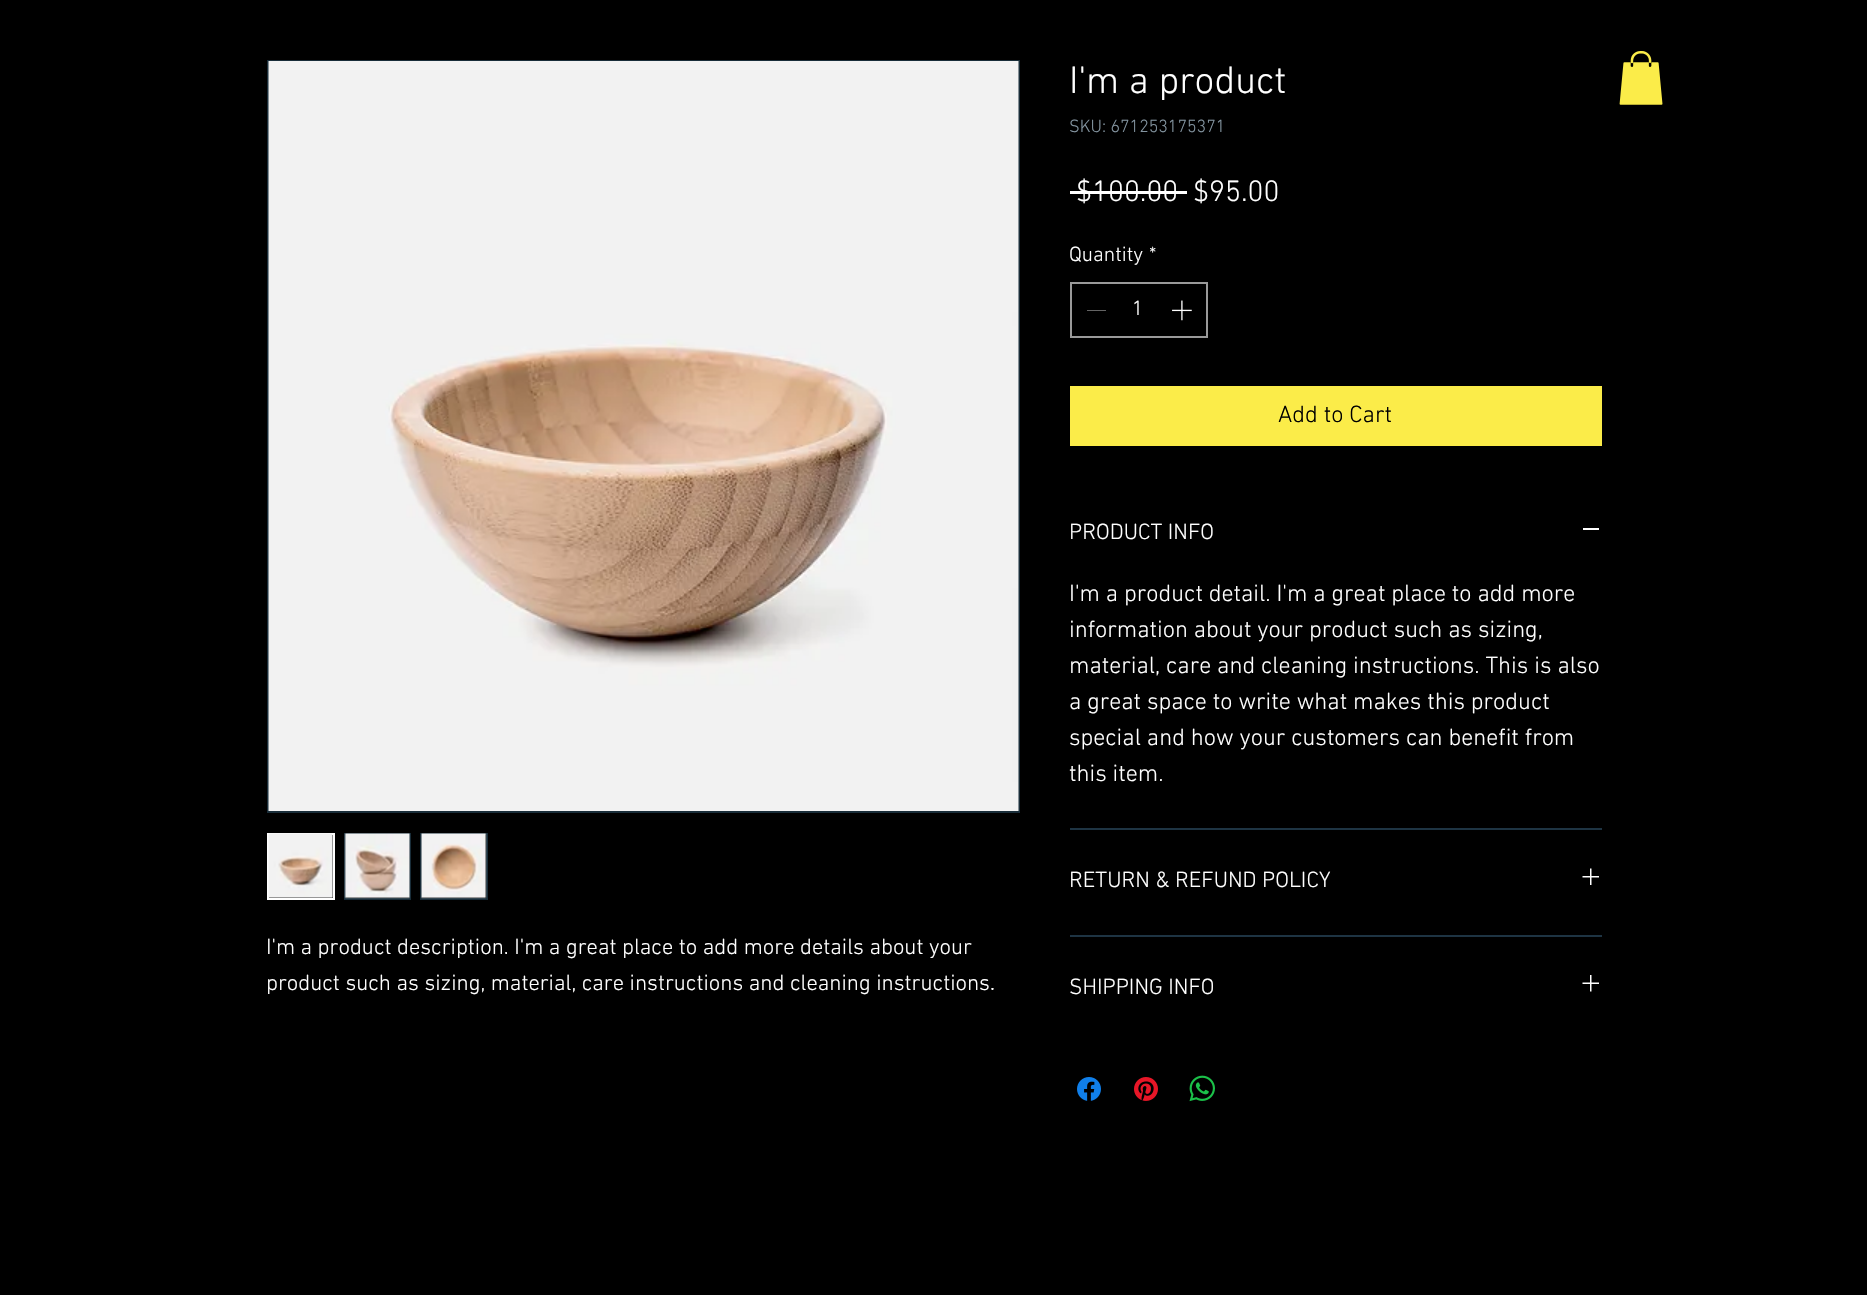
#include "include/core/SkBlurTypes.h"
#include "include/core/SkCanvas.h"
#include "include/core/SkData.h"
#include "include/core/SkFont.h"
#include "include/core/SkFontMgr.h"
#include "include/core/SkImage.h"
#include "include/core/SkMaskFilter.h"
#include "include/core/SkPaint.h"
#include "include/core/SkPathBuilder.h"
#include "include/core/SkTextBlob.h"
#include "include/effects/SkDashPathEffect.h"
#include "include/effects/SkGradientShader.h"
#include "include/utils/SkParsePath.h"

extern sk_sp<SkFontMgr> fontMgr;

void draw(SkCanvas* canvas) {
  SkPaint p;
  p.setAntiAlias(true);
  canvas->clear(SK_ColorBLACK);
  p.setStyle(SkPaint::kStroke_Style);
  p.setStrokeWidth(2);
  p.setColor(SkColorSetRGB(25, 45, 57));
  canvas->drawRect(SkRect::MakeLTRB(268, 61, 1019, 812), p);
  canvas->drawImageRect(SkImages::DeferredFromEncodedData(SkData::MakeFromFileName("images/1.png")), SkRect::MakeLTRB(268, 61, 1019, 811), SkSamplingOptions());
  p.setColor(SK_ColorWHITE);
  canvas->drawRect(SkRect::MakeLTRB(268, 834, 334, 899), p);
  canvas->drawImageRect(SkImages::DeferredFromEncodedData(SkData::MakeFromFileName("images/2.png")), SkRect::MakeLTRB(268, 833, 333, 898), SkSamplingOptions());
  p.setColor(SkColorSetRGB(25, 45, 57));
  canvas->drawRect(SkRect::MakeLTRB(345, 834, 410, 899), p);
  canvas->drawImageRect(SkImages::DeferredFromEncodedData(SkData::MakeFromFileName("images/3.png")), SkRect::MakeLTRB(344, 833, 410, 899), SkSamplingOptions());
  canvas->drawRect(SkRect::MakeLTRB(421, 834, 487, 899), p);
  canvas->drawImageRect(SkImages::DeferredFromEncodedData(SkData::MakeFromFileName("images/4.png")), SkRect::MakeLTRB(421, 833, 487, 899), SkSamplingOptions());
  p.setStyle(SkPaint::kFill_Style);
  p.setColor(SK_ColorWHITE);
  canvas->drawRect(SkRect::MakeLTRB(1070, 191, 1187, 194), p);
  p.setStyle(SkPaint::kStroke_Style);
  p.setColor(SkColorSetRGB(153, 153, 153));
  canvas->drawRect(SkRect::MakeLTRB(1071, 283, 1207, 337), p);
  p.setStyle(SkPaint::kFill_Style);
  p.setColor(SkColorSetRGB(100, 100, 100));
  canvas->drawRect(SkRect::MakeLTRB(1087, 310, 1106, 311), p);
  canvas->drawImageRect(SkImages::DeferredFromEncodedData(SkData::MakeFromFileName("images/5.png")), SkRect::MakeLTRB(1172, 300, 1192, 321), SkSamplingOptions());
  p.setColor(SkColorSetRGB(251, 236, 73));
  canvas->drawRect(SkRect::MakeLTRB(1070, 386, 1602, 446), p);
  p.setColor(SkColorSetRGB(30, 52, 67));
  canvas->drawRect(SkRect::MakeLTRB(1070, 828, 1602, 830), p);
  p.setColor(SK_ColorWHITE);
  canvas->drawRect(SkRect::MakeLTRB(1583, 528, 1599, 530), p);
  p.setColor(SkColorSetRGB(30, 52, 67));
  canvas->drawRect(SkRect::MakeLTRB(1070, 935, 1602, 937), p);
  canvas->drawImageRect(SkImages::DeferredFromEncodedData(SkData::MakeFromFileName("images/6.png")), SkRect::MakeLTRB(1582, 868, 1599, 885), SkSamplingOptions());
  canvas->drawImageRect(SkImages::DeferredFromEncodedData(SkData::MakeFromFileName("images/7.png")), SkRect::MakeLTRB(1582, 975, 1599, 992), SkSamplingOptions());
  canvas->drawImageRect(SkImages::DeferredFromEncodedData(SkData::MakeFromFileName("images/8.png")), SkRect::MakeLTRB(1077, 1077, 1101, 1101), SkSamplingOptions());
  canvas->drawImageRect(SkImages::DeferredFromEncodedData(SkData::MakeFromFileName("images/9.png")), SkRect::MakeLTRB(1134, 1077, 1158, 1101), SkSamplingOptions());
  canvas->drawImageRect(SkImages::DeferredFromEncodedData(SkData::MakeFromFileName("images/10.png")), SkRect::MakeLTRB(1189, 1075, 1215, 1102), SkSamplingOptions());
  canvas->drawImageRect(SkImages::DeferredFromEncodedData(SkData::MakeFromFileName("images/11.png")), SkRect::MakeLTRB(1619, 51, 1663, 105), SkSamplingOptions());
  SkFont font1(fontMgr->matchFamilyStyle("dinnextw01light", SkFontStyle(300, SkFontStyle::kNormal_Width, SkFontStyle::kUpright_Slant)), 22.5f);
  font1.setSubpixel(true);
  p.setColor(SK_ColorWHITE);
  canvas->drawString("I'm a product description. I'm a great place to add more details about your", 266, 954, font1, p);
  canvas->drawString("product such as sizing, material, care instructions and cleaning instructions.", 266, 990, font1, p);
  SkFont font2(fontMgr->matchFamilyStyle("dinnextw01light", SkFontStyle(300, SkFontStyle::kNormal_Width, SkFontStyle::kUpright_Slant)), 39);
  font2.setSubpixel(true);
  canvas->drawString("I'm a product", 1069, 93, font2, p);
  SkFont font3(fontMgr->matchFamilyStyle("dinnextw01light", SkFontStyle(300, SkFontStyle::kNormal_Width, SkFontStyle::kUpright_Slant)), 18);
  font3.setSubpixel(true);
  p.setColor(SkColorSetRGB(131, 148, 160));
  canvas->drawString("SKU: 671253175371", 1069, 132, font3, p);
  SkFont font4(fontMgr->matchFamilyStyle("dinnextw01light", SkFontStyle(300, SkFontStyle::kNormal_Width, SkFontStyle::kUpright_Slant)), 30);
  font4.setSubpixel(true);
  p.setColor(SK_ColorWHITE);
  canvas->drawString("$100.00", 1076, 201, font4, p);
  canvas->drawString("$95.00", 1193, 201, font4, p);
  SkFont font5(fontMgr->matchFamilyStyle("dinnextw01light", SkFontStyle(300, SkFontStyle::kNormal_Width, SkFontStyle::kUpright_Slant)), 21);
  font5.setSubpixel(true);
  canvas->drawString("Quantity", 1069, 261, font5, p);
  canvas->drawString("*", 1149, 261, font5, p);
  canvas->drawString("1", 1132, 315, font5, p);
  SkFont font6(fontMgr->matchFamilyStyle("dinnextw01light", SkFontStyle(300, SkFontStyle::kNormal_Width, SkFontStyle::kUpright_Slant)), 24);
  font6.setSubpixel(true);
  p.setColor(SK_ColorBLACK);
  canvas->drawString("Add to Cart", 1278, 422, font6, p);
  p.setColor(SK_ColorWHITE);
  canvas->drawString("PRODUCT INFO", 1069, 539, font1, p);
  canvas->drawString("I'm a product detail. I'm a great place to add more", 1069, 601, font6, p);
  canvas->drawString("information about your product such as sizing,", 1069, 637, font6, p);
  canvas->drawString("material, care and cleaning instructions. This is also", 1069, 673, font6, p);
  canvas->drawString("a great space to write what makes this product", 1069, 709, font6, p);
  canvas->drawString("special and how your customers can benefit from", 1069, 745, font6, p);
  canvas->drawString("this item.", 1069, 781, font6, p);
  canvas->drawString("RETURN & REFUND POLICY", 1069, 887, font1, p);
  canvas->drawString("SHIPPING INFO", 1069, 994, font1, p);
}
